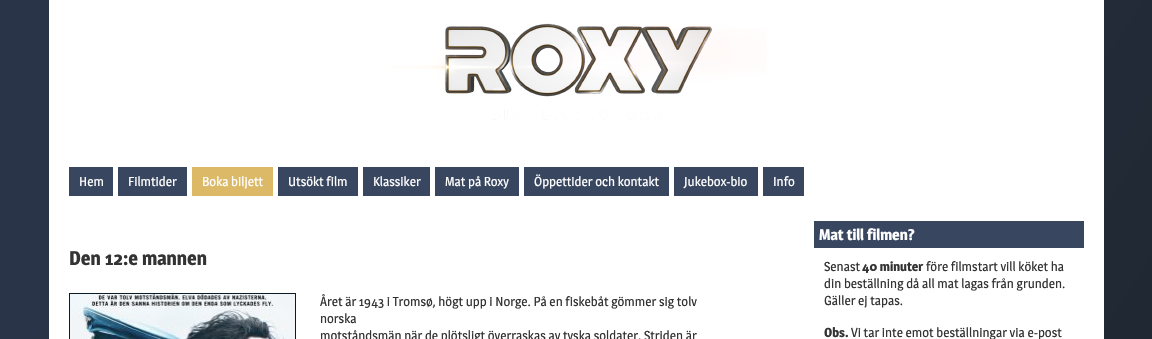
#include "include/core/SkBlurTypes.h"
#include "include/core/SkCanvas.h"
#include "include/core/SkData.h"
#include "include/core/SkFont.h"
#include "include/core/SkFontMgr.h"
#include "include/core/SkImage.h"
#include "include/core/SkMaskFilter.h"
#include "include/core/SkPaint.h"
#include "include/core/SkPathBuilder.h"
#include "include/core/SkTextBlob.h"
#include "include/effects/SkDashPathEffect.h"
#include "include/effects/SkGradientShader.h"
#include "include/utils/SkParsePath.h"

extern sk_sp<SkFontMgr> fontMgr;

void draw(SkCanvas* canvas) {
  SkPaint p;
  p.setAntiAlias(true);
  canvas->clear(SK_ColorWHITE);
  {
    const SkColor colors[] = {SkColorSetRGB(42, 52, 72), SkColorSetRGB(28, 36, 43)};
    const float stops[] = {0.13f, 1};
    const SkPoint ends[] = {{-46, 70}, {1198, 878}};
    p.setShader(SkGradientShader::MakeLinear(ends, colors, stops, 2, SkTileMode::kClamp));
    p.setAlpha(255);
  }
  canvas->drawRect(SkRect::MakeLTRB(0, 0, 1152, 339), p);
  p.setShader(nullptr);
  p.setColor(SK_ColorWHITE);
  canvas->drawRect(SkRect::MakeLTRB(49, 0, 1104, 339), p);
  canvas->drawImageRect(SkImages::DeferredFromEncodedData(SkData::MakeFromFileName("images/1.png")), SkRect::MakeLTRB(392, 23, 767, 120), SkSamplingOptions());
  p.setColor(SkColorSetRGB(56, 70, 95));
  canvas->drawRect(SkRect::MakeLTRB(69, 167, 113, 196), p);
  canvas->drawRect(SkRect::MakeLTRB(118, 167, 187, 196), p);
  p.setColor(SkColorSetRGB(219, 185, 103));
  canvas->drawRect(SkRect::MakeLTRB(192, 167, 273, 196), p);
  p.setColor(SkColorSetRGB(56, 70, 95));
  canvas->drawRect(SkRect::MakeLTRB(278, 167, 358, 196), p);
  canvas->drawRect(SkRect::MakeLTRB(363, 167, 430, 196), p);
  canvas->drawRect(SkRect::MakeLTRB(435, 167, 519, 196), p);
  canvas->drawRect(SkRect::MakeLTRB(524, 167, 669, 196), p);
  canvas->drawRect(SkRect::MakeLTRB(674, 167, 758, 196), p);
  canvas->drawRect(SkRect::MakeLTRB(763, 167, 804, 196), p);
  canvas->drawImageRect(SkImages::DeferredFromEncodedData(SkData::MakeFromFileName("images/2.png")), SkRect::MakeLTRB(70, 294, 295, 339), SkSamplingOptions());
  p.setStyle(SkPaint::kStroke_Style);
  p.setStrokeWidth(1);
  p.setColor(SkColorSetRGB(11, 28, 38));
  canvas->drawRect(SkRect::MakeLTRB(69.5f, 293.5f, 295.5f, 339.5f), p);
  p.setStyle(SkPaint::kFill_Style);
  p.setColor(SkColorSetRGB(56, 70, 95));
  canvas->drawRect(SkRect::MakeLTRB(814, 221, 1084, 248), p);
  SkFont font1(fontMgr->matchFamilyStyle("Magra", SkFontStyle::Normal()), 13);
  font1.setSubpixel(true);
  p.setColor(SK_ColorWHITE);
  canvas->drawString("Hem", 79, 186, font1, p);
  canvas->drawString("Filmtider", 128, 186, font1, p);
  canvas->drawString("Boka biljett", 202, 186, font1, p);
  canvas->drawString("Utsökt film", 288, 186, font1, p);
  canvas->drawString("Klassiker", 373, 186, font1, p);
  canvas->drawString("Mat på Roxy", 445, 186, font1, p);
  canvas->drawString("Öppettider och kontakt", 534, 186, font1, p);
  canvas->drawString("Jukebox-bio", 684, 186, font1, p);
  canvas->drawString("Info", 773, 186, font1, p);
  SkFont font2(fontMgr->matchFamilyStyle("Magra", SkFontStyle::Bold()), 19.5f);
  font2.setSubpixel(true);
  p.setColor(SkColorSetRGB(51, 51, 51));
  canvas->drawString("Den 12:e mannen", 69, 265, font2, p);
  canvas->drawString("Året är 1943 i Tromsø, högt upp i Norge. På en fiskebåt gömmer sig tolv", 320, 306, font1, p);
  canvas->drawString("norska", 320, 323, font1, p);
  canvas->drawString("motståndsmän när de plötsligt överraskas av tyska soldater. Striden är", 320, 340, font1, p);
  SkFont font3(fontMgr->matchFamilyStyle("Magra", SkFontStyle::Bold()), 15.25f);
  font3.setSubpixel(true);
  p.setColor(SK_ColorWHITE);
  canvas->drawString("Mat till filmen?", 819, 240, font3, p);
  p.setColor(SkColorSetRGB(51, 51, 51));
  canvas->drawString("Senast", 824, 271, font1, p);
  SkFont font4(fontMgr->matchFamilyStyle("Magra", SkFontStyle::Bold()), 13);
  font4.setSubpixel(true);
  canvas->drawString("40 minuter", 862, 271, font4, p);
  canvas->drawString("före filmstart vill köket ha", 926, 271, font1, p);
  canvas->drawString("din beställning då all mat lagas från grunden.", 824, 288, font1, p);
  canvas->drawString("Gäller ej tapas.", 824, 305, font1, p);
  canvas->drawString("Obs.", 824, 337, font4, p);
  canvas->drawString("Vi tar inte emot beställningar via e-post", 851, 337, font1, p);
}
